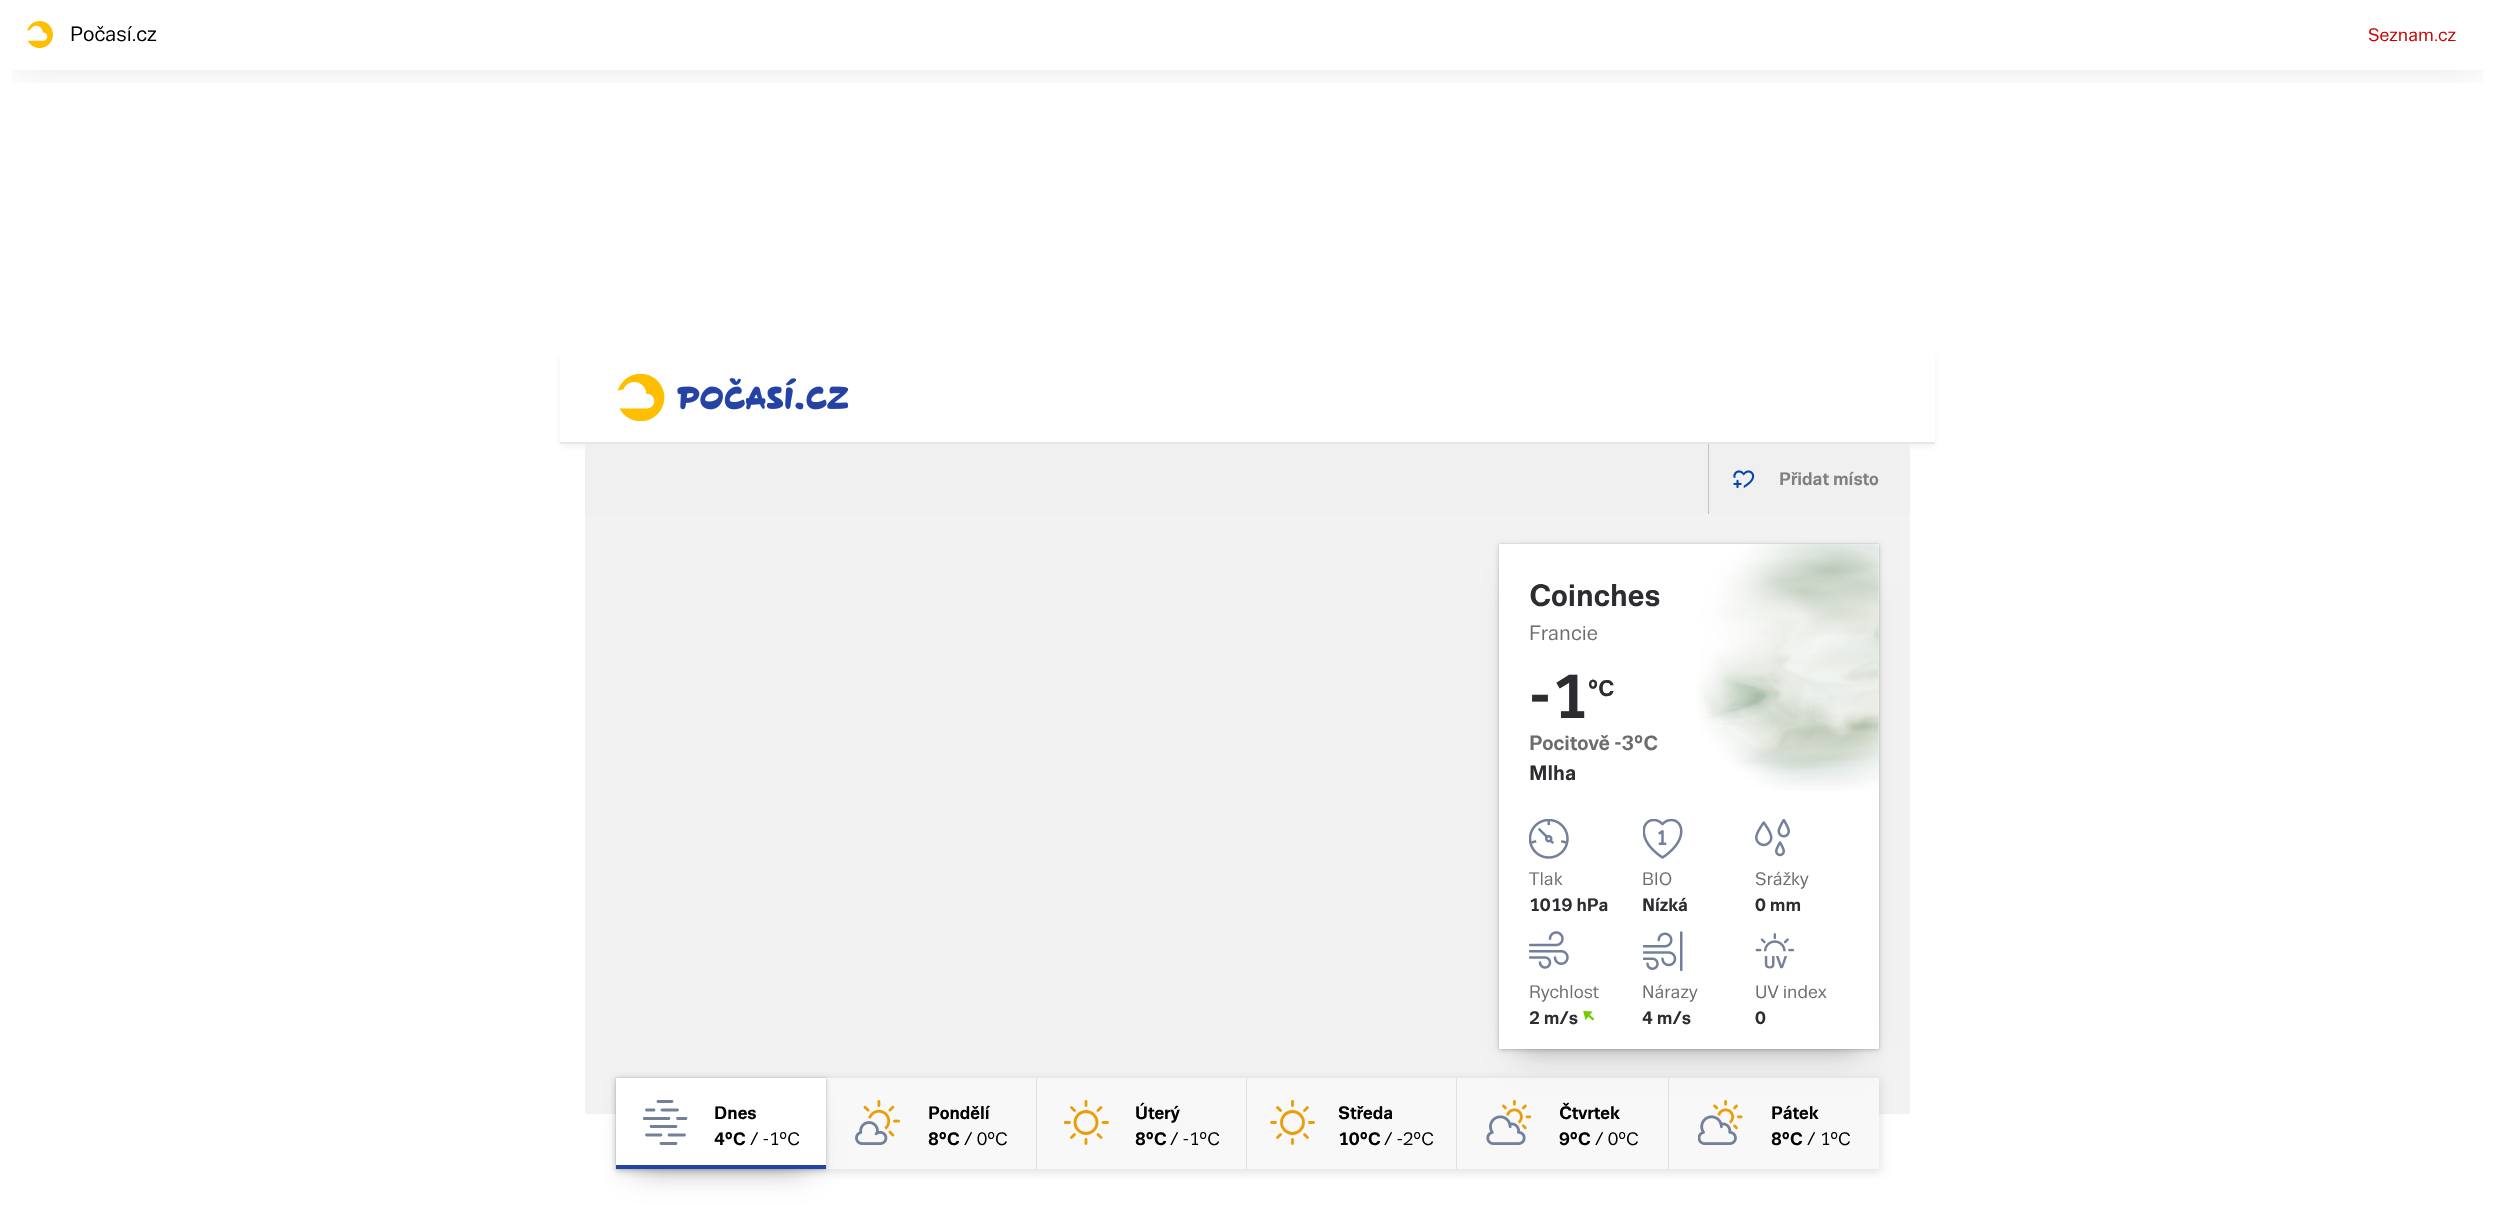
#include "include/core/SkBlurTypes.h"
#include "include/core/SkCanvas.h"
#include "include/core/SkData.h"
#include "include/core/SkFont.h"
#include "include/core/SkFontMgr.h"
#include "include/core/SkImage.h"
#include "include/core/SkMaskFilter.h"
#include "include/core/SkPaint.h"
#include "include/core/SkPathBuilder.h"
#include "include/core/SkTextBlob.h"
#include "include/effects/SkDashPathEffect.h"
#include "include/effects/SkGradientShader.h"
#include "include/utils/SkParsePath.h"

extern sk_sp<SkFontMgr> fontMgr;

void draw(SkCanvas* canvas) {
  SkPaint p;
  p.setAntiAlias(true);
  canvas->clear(SK_ColorWHITE);
  canvas->save();
  canvas->clipRect(SkRect::MakeLTRB(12, 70, 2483, 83));
  p.setColor(SkColorSetARGB(31, 0, 0, 0));
  p.setMaskFilter(SkMaskFilter::MakeBlur(kNormal_SkBlurStyle, 19));
  canvas->drawRect(SkRect::MakeLTRB(15, 25, 2480, 65), p);
  p.setMaskFilter(nullptr);
  canvas->restore();
  canvas->drawImageRect(SkImages::DeferredFromEncodedData(SkData::MakeFromFileName("images/1.png")), SkRect::MakeLTRB(27, 21, 53, 48), SkSamplingOptions());
  canvas->save();
  canvas->clipPath(SkPathBuilder(SkPathFillType::kEvenOdd).moveTo(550, 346).lineTo(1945, 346).lineTo(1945, 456).lineTo(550, 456).close().moveTo(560, 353).lineTo(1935, 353).lineTo(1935, 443).lineTo(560, 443).close().detach(), true);
  p.setColor(SkColorSetARGB(20, 78, 78, 78));
  p.setMaskFilter(SkMaskFilter::MakeBlur(kNormal_SkBlurStyle, 3));
  canvas->drawRect(SkRect::MakeLTRB(560, 356, 1935, 446), p);
  p.setMaskFilter(nullptr);
  canvas->restore();
  p.setColor(SkColorSetRGB(231, 231, 231));
  canvas->drawRect(SkRect::MakeLTRB(560, 442, 1935, 444), p);
  canvas->drawImageRect(SkImages::DeferredFromEncodedData(SkData::MakeFromFileName("images/2.png")), SkRect::MakeLTRB(617, 374, 849, 421), SkSamplingOptions());
  p.setColor(SkColorSetRGB(240, 240, 240));
  canvas->drawRect(SkRect::MakeLTRB(585, 444, 1910, 514), p);
  p.setColor(SkColorSetRGB(192, 192, 192));
  canvas->drawRect(SkRect::MakeLTRB(1708, 444, 1709, 514), p);
  canvas->drawImageRect(SkImages::DeferredFromEncodedData(SkData::MakeFromFileName("images/3.png")), SkRect::MakeLTRB(1733, 470, 1755, 489), SkSamplingOptions());
  p.setColor(SkColorSetRGB(242, 242, 242));
  canvas->drawRect(SkRect::MakeLTRB(585, 514, 1910, 1114), p);
  p.setColor(SkColorSetARGB(26, 0, 0, 0));
  p.setMaskFilter(SkMaskFilter::MakeBlur(kNormal_SkBlurStyle, 4));
  canvas->drawRect(SkRect::MakeLTRB(616, 1079, 1881, 1173), p);
  p.setMaskFilter(nullptr);
  p.setColor(SkColorSetRGB(248, 248, 248));
  canvas->drawRect(SkRect::MakeLTRB(826, 1078, 1879, 1169), p);
  p.setColor(SkColorSetRGB(225, 225, 225));
  canvas->drawRect(SkRect::MakeLTRB(1668, 1078, 1669, 1169), p);
  p.setColor(SkColorSetARGB(77, 0, 0, 0));
  p.setMaskFilter(SkMaskFilter::MakeBlur(kNormal_SkBlurStyle, 15));
  canvas->drawRect(SkRect::MakeLTRB(1519, 584, 1859, 1049), p);
  p.setMaskFilter(nullptr);
  p.setColor(SkColorSetARGB(51, 0, 0, 0));
  p.setMaskFilter(SkMaskFilter::MakeBlur(kNormal_SkBlurStyle, 2.5f));
  canvas->drawRect(SkRect::MakeLTRB(1499, 545, 1879, 1050), p);
  p.setMaskFilter(nullptr);
  p.setMaskFilter(SkMaskFilter::MakeBlur(kNormal_SkBlurStyle, 0.5f));
  canvas->drawRect(SkRect::MakeLTRB(1499, 544, 1879, 1049), p);
  p.setMaskFilter(nullptr);
  p.setColor(SK_ColorWHITE);
  canvas->drawRect(SkRect::MakeLTRB(1499, 544, 1879, 1049), p);
  canvas->drawImageRect(SkImages::DeferredFromEncodedData(SkData::MakeFromFileName("images/4.png")), SkRect::MakeLTRB(1697, 543, 1879, 791), SkSamplingOptions());
  canvas->drawImageRect(SkImages::DeferredFromEncodedData(SkData::MakeFromFileName("images/5.png")), SkRect::MakeLTRB(1529, 819, 1569, 859), SkSamplingOptions());
  canvas->drawImageRect(SkImages::DeferredFromEncodedData(SkData::MakeFromFileName("images/6.png")), SkRect::MakeLTRB(1643, 819, 1683, 859), SkSamplingOptions());
  canvas->drawImageRect(SkImages::DeferredFromEncodedData(SkData::MakeFromFileName("images/7.png")), SkRect::MakeLTRB(1755, 819, 1790, 857), SkSamplingOptions());
  canvas->drawImageRect(SkImages::DeferredFromEncodedData(SkData::MakeFromFileName("images/8.png")), SkRect::MakeLTRB(1529, 931, 1569, 969), SkSamplingOptions());
  canvas->drawImageRect(SkImages::DeferredFromEncodedData(SkData::MakeFromFileName("images/9.png")), SkRect::MakeLTRB(1583, 1010, 1594, 1021), SkSamplingOptions());
  canvas->drawImageRect(SkImages::DeferredFromEncodedData(SkData::MakeFromFileName("images/10.png")), SkRect::MakeLTRB(1643, 931, 1683, 971), SkSamplingOptions());
  canvas->drawImageRect(SkImages::DeferredFromEncodedData(SkData::MakeFromFileName("images/11.png")), SkRect::MakeLTRB(1755, 933, 1794, 969), SkSamplingOptions());
  p.setColor(SkColorSetARGB(77, 0, 0, 0));
  p.setMaskFilter(SkMaskFilter::MakeBlur(kNormal_SkBlurStyle, 15));
  canvas->drawRect(SkRect::MakeLTRB(636, 1118, 806, 1169), p);
  p.setMaskFilter(nullptr);
  p.setColor(SkColorSetARGB(51, 0, 0, 0));
  p.setMaskFilter(SkMaskFilter::MakeBlur(kNormal_SkBlurStyle, 2.5f));
  canvas->drawRect(SkRect::MakeLTRB(616, 1079, 826, 1170), p);
  p.setMaskFilter(nullptr);
  p.setMaskFilter(SkMaskFilter::MakeBlur(kNormal_SkBlurStyle, 0.5f));
  canvas->drawRect(SkRect::MakeLTRB(616, 1078, 826, 1169), p);
  p.setMaskFilter(nullptr);
  p.setColor(SK_ColorWHITE);
  canvas->drawRect(SkRect::MakeLTRB(616, 1078, 826, 1165), p);
  p.setColor(SkColorSetRGB(37, 67, 165));
  canvas->drawRect(SkRect::MakeLTRB(616, 1165, 826, 1169), p);
  canvas->save();
  canvas->clipRect(SkRect::MakeLTRB(643, 1100, 688, 1145));
  p.setStyle(SkPaint::kStroke_Style);
  p.setStrokeWidth(2.8f);
  p.setStrokeCap(SkPaint::kRound_Cap);
  p.setStrokeJoin(SkPaint::kRound_Join);
  p.setColor(SkColorSetRGB(115, 128, 153));
  canvas->drawPath(SkPathBuilder().moveTo(646.5f, 1110).lineTo(654, 1110).moveTo(662, 1110).lineTo(677.5f, 1110).moveTo(658, 1101.5f).lineTo(672, 1101.5f).moveTo(644, 1118.5f).lineTo(669, 1118.5f).moveTo(677.5f, 1118.5f).lineTo(686, 1118.5f).moveTo(651, 1126.5f).lineTo(676, 1126.5f).moveTo(669, 1135).lineTo(684.5f, 1135).moveTo(646.5f, 1135).lineTo(661, 1135).moveTo(661, 1143.5f).lineTo(676, 1143.5f).detach(), p);
  canvas->restore();
  p.setStyle(SkPaint::kFill_Style);
  p.setColor(SkColorSetRGB(225, 225, 225));
  canvas->drawRect(SkRect::MakeLTRB(1036, 1078, 1037, 1169), p);
  canvas->drawImageRect(SkImages::DeferredFromEncodedData(SkData::MakeFromFileName("images/12.png")), SkRect::MakeLTRB(855, 1100, 900, 1145), SkSamplingOptions());
  canvas->drawRect(SkRect::MakeLTRB(1246, 1078, 1247, 1169), p);
  p.setStyle(SkPaint::kStroke_Style);
  p.setStrokeCap(SkPaint::kButt_Cap);
  p.setStrokeJoin(SkPaint::kMiter_Join);
  p.setColor(SkColorSetRGB(235, 157, 5));
  canvas->drawCircle(1086, 1122.5f, 11, p);
  canvas->save();
  canvas->clipRect(SkRect::MakeLTRB(1064, 1100, 1109, 1145));
  p.setStrokeCap(SkPaint::kRound_Cap);
  canvas->drawPath(SkPathBuilder().moveTo(1086, 1101.5f).lineTo(1086, 1105.5f).moveTo(1071.5f, 1107.5f).lineTo(1074.5f, 1110.5f).moveTo(1065, 1122.5f).lineTo(1069.5f, 1122.5f).moveTo(1071.5f, 1137.5f).lineTo(1074.5f, 1134.5f).moveTo(1086, 1143.5f).lineTo(1086, 1139.5f).moveTo(1101, 1137.5f).lineTo(1098, 1134.5f).moveTo(1107.5f, 1122.5f).lineTo(1103, 1122.5f).moveTo(1101, 1107.5f).lineTo(1098, 1110.5f).detach(), p);
  canvas->restore();
  p.setStyle(SkPaint::kFill_Style);
  p.setColor(SkColorSetRGB(225, 225, 225));
  canvas->drawRect(SkRect::MakeLTRB(1456, 1078, 1457, 1169), p);
  p.setStyle(SkPaint::kStroke_Style);
  p.setStrokeCap(SkPaint::kButt_Cap);
  p.setColor(SkColorSetRGB(235, 157, 5));
  canvas->drawCircle(1292.5f, 1122.5f, 11, p);
  p.setStrokeCap(SkPaint::kRound_Cap);
  canvas->drawPath(SkPathBuilder().moveTo(1292.5f, 1101.5f).lineTo(1292.5f, 1105.5f).moveTo(1277.5f, 1107.5f).lineTo(1280.5f, 1110.5f).moveTo(1271.5f, 1122.5f).lineTo(1275.5f, 1122.5f).moveTo(1277.5f, 1137.5f).lineTo(1280.5f, 1134.5f).moveTo(1292.5f, 1143.5f).lineTo(1292.5f, 1139.5f).moveTo(1307.5f, 1137.5f).lineTo(1304.5f, 1134.5f).moveTo(1313.5f, 1122.5f).lineTo(1309.5f, 1122.5f).moveTo(1307.5f, 1107.5f).lineTo(1304.5f, 1110.5f).detach(), p);
  canvas->drawImageRect(SkImages::DeferredFromEncodedData(SkData::MakeFromFileName("images/13.png")), SkRect::MakeLTRB(1486, 1100, 1531, 1145), SkSamplingOptions());
  canvas->drawImageRect(SkImages::DeferredFromEncodedData(SkData::MakeFromFileName("images/14.png")), SkRect::MakeLTRB(1698, 1100, 1743, 1145), SkSamplingOptions());
  SkFont font1(fontMgr->matchFamilyStyle("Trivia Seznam", SkFontStyle::Normal()), 20);
  font1.setSubpixel(true);
  p.setStyle(SkPaint::kFill_Style);
  p.setColor(SK_ColorBLACK);
  canvas->drawString("Počasí.cz", 70, 41, font1, p);
  SkFont font2(fontMgr->matchFamilyStyle("Trivia Seznam", SkFontStyle::Normal()), 17.5f);
  font2.setSubpixel(true);
  p.setColor(SkColorSetRGB(204, 0, 0));
  canvas->drawString("Seznam.cz", 2368, 41, font2, p);
  SkFont font3(fontMgr->matchFamilyStyle("Trivia Seznam", SkFontStyle::Bold()), 17.5f);
  font3.setSubpixel(true);
  p.setColor(SkColorSetRGB(128, 128, 128));
  canvas->drawString("Přidat místo", 1779, 485, font3, p);
  SkFont font4(fontMgr->matchFamilyStyle("Trivia Seznam", SkFontStyle::Bold()), 30);
  font4.setSubpixel(true);
  p.setColor(SkColorSetRGB(45, 45, 49));
  canvas->drawString("Coinches", 1529, 606, font4, p);
  p.setColor(SkColorSetRGB(109, 109, 109));
  canvas->drawString("Francie", 1529, 640, font1, p);
  SkFont font5(fontMgr->matchFamilyStyle("Trivia Seznam", SkFontStyle::Bold()), 60);
  font5.setSubpixel(true);
  p.setColor(SkColorSetRGB(45, 45, 49));
  canvas->drawString("-1", 1529, 718, font5, p);
  SkFont font6(fontMgr->matchFamilyStyle("Trivia Seznam", SkFontStyle::Bold()), 22);
  font6.setSubpixel(true);
  canvas->drawString("°C", 1588, 696, font6, p);
  SkFont font7(fontMgr->matchFamilyStyle("Trivia Seznam", SkFontStyle::Bold()), 20);
  font7.setSubpixel(true);
  p.setColor(SkColorSetRGB(109, 109, 109));
  canvas->drawString("Pocitově -3°C", 1529, 750, font7, p);
  p.setColor(SkColorSetRGB(45, 45, 49));
  canvas->drawString("Mlha", 1529, 780, font7, p);
  p.setColor(SkColorSetRGB(109, 109, 109));
  canvas->drawString("Tlak", 1529, 885, font2, p);
  p.setColor(SkColorSetRGB(45, 45, 49));
  canvas->drawString("1019 hPa", 1529, 911, font3, p);
  p.setColor(SkColorSetRGB(109, 109, 109));
  canvas->drawString("BIO", 1642, 885, font2, p);
  p.setColor(SkColorSetRGB(45, 45, 49));
  canvas->drawString("Nízká", 1642, 911, font3, p);
  p.setColor(SkColorSetRGB(109, 109, 109));
  canvas->drawString("Srážky", 1755, 885, font2, p);
  p.setColor(SkColorSetRGB(45, 45, 49));
  canvas->drawString("0 mm", 1755, 911, font3, p);
  p.setColor(SkColorSetRGB(109, 109, 109));
  canvas->drawString("Rychlost", 1529, 998, font2, p);
  p.setColor(SkColorSetRGB(45, 45, 49));
  canvas->drawString("2 m/s", 1529, 1024, font3, p);
  p.setColor(SkColorSetRGB(109, 109, 109));
  canvas->drawString("Nárazy", 1642, 998, font2, p);
  p.setColor(SkColorSetRGB(45, 45, 49));
  canvas->drawString("4 m/s", 1642, 1024, font3, p);
  p.setColor(SkColorSetRGB(109, 109, 109));
  canvas->drawString("UV index", 1755, 998, font2, p);
  p.setColor(SkColorSetRGB(45, 45, 49));
  canvas->drawString("0", 1755, 1024, font3, p);
  p.setColor(SK_ColorBLACK);
  canvas->drawString("Dnes", 714, 1119, font3, p);
  canvas->drawString("4°C", 714, 1145, font3, p);
  canvas->drawString("/ -1°C", 750, 1145, font2, p);
  canvas->drawString("Pondělí", 928, 1119, font3, p);
  canvas->drawString("8°C", 928, 1145, font3, p);
  canvas->drawString("/ 0°C", 964, 1145, font2, p);
  canvas->drawString("Úterý", 1135, 1119, font3, p);
  canvas->drawString("8°C", 1135, 1145, font3, p);
  canvas->drawString("/ -1°C", 1170, 1145, font2, p);
  canvas->drawString("Středa", 1338, 1119, font3, p);
  canvas->drawString("10°C", 1338, 1145, font3, p);
  canvas->drawString("/ -2°C", 1384, 1145, font2, p);
  canvas->drawString("Čtvrtek", 1559, 1119, font3, p);
  canvas->drawString("9°C", 1559, 1145, font3, p);
  canvas->drawString("/ 0°C", 1595, 1145, font2, p);
  canvas->drawString("Pátek", 1771, 1119, font3, p);
  canvas->drawString("8°C", 1771, 1145, font3, p);
  canvas->drawString("/ 1°C", 1807, 1145, font2, p);
}
